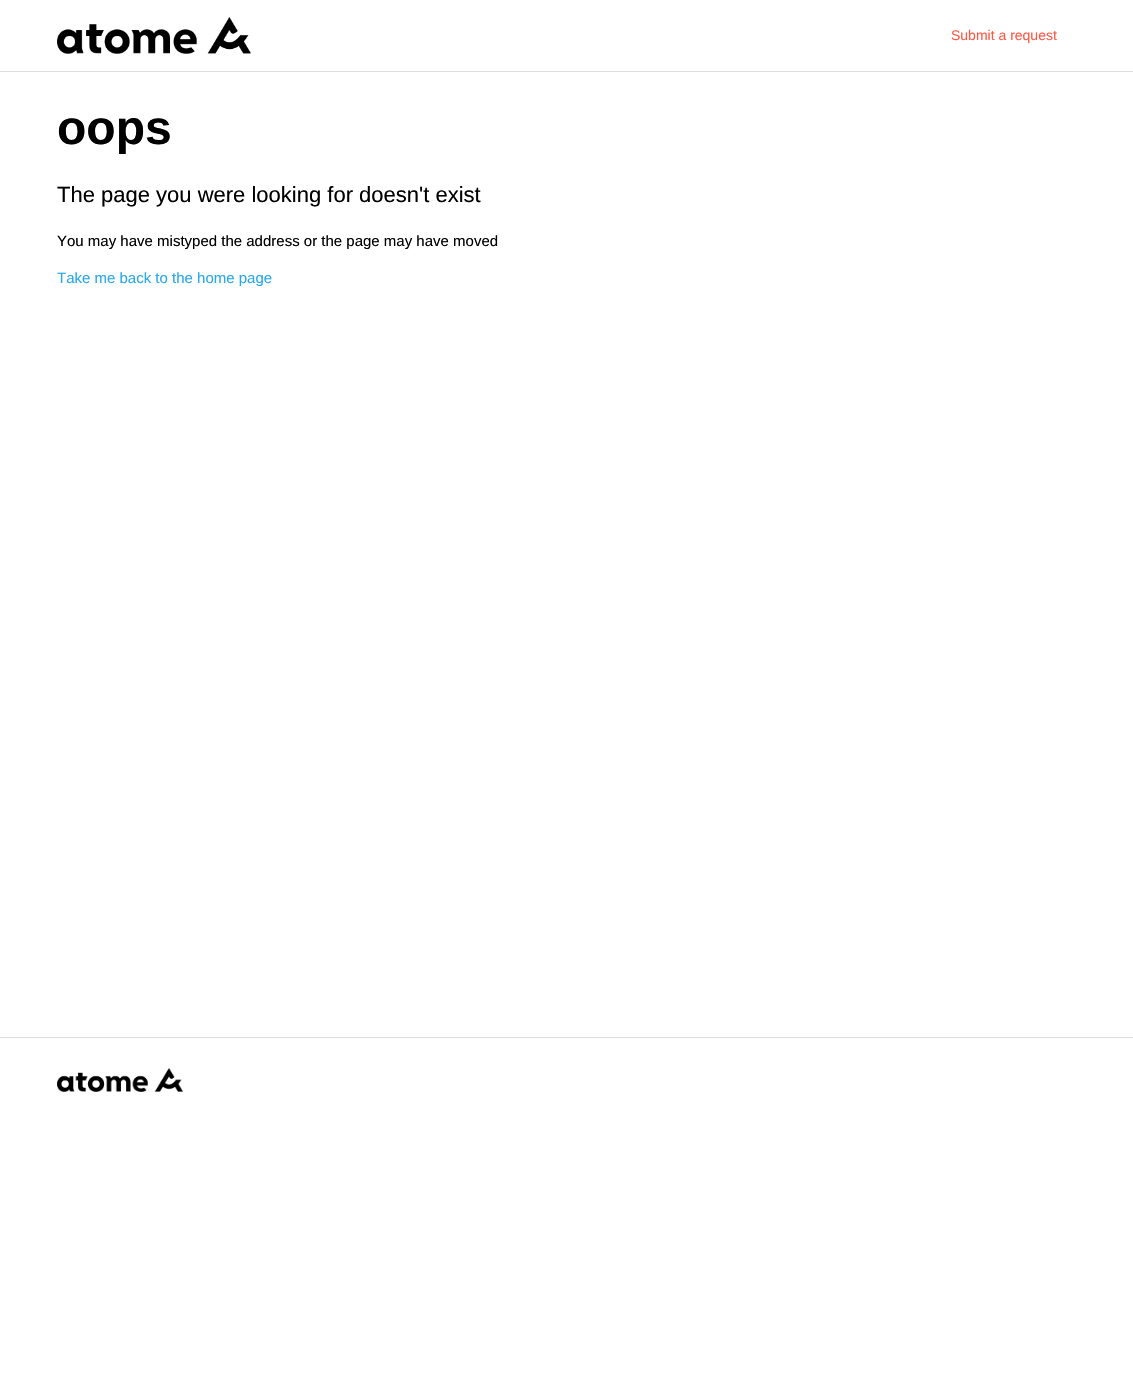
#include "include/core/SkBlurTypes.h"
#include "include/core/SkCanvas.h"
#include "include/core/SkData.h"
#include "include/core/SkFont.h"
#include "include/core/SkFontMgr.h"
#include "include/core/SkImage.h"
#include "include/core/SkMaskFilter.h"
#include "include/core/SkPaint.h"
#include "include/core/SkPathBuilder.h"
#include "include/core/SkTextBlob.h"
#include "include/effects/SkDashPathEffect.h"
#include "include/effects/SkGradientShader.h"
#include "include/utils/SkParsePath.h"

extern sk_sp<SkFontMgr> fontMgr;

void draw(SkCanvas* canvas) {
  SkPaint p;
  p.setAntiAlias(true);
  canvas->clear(SK_ColorWHITE);
  canvas->drawImageRect(SkImages::DeferredFromEncodedData(SkData::MakeFromFileName("images/1.png")), SkRect::MakeLTRB(57, 17, 251, 54), SkSamplingOptions());
  p.setColor(SkColorSetRGB(221, 221, 221));
  canvas->drawRect(SkRect::MakeLTRB(0, 71, 1133, 72), p);
  canvas->drawRect(SkRect::MakeLTRB(0, 1037, 1133, 1038), p);
  canvas->drawImageRect(SkImages::DeferredFromEncodedData(SkData::MakeFromFileName("images/2.png")), SkRect::MakeLTRB(57, 1068, 183, 1092), SkSamplingOptions());
  SkFont font1(fontMgr->matchFamilyStyle("Liberation Sans", SkFontStyle::Normal()), 14);
  font1.setSubpixel(true);
  p.setColor(SkColorSetRGB(255, 88, 68));
  canvas->drawString("Submit a request", 951, 40, font1, p);
  SkFont font2(fontMgr->matchFamilyStyle("Liberation Sans", SkFontStyle::Bold()), 48);
  font2.setSubpixel(true);
  p.setColor(SK_ColorBLACK);
  canvas->drawString("oops", 57, 144, font2, p);
  SkFont font3(fontMgr->matchFamilyStyle("Liberation Sans", SkFontStyle::Normal()), 22);
  font3.setSubpixel(true);
  canvas->drawString("The page you were looking for doesn't exist", 57, 202, font3, p);
  SkFont font4(fontMgr->matchFamilyStyle("Liberation Sans", SkFontStyle::Normal()), 15);
  font4.setSubpixel(true);
  canvas->drawString("You may have mistyped the address or the page may have moved", 57, 246, font4, p);
  p.setColor(SkColorSetRGB(38, 168, 237));
  canvas->drawString("Take me back to the home page", 57, 283, font4, p);
}
